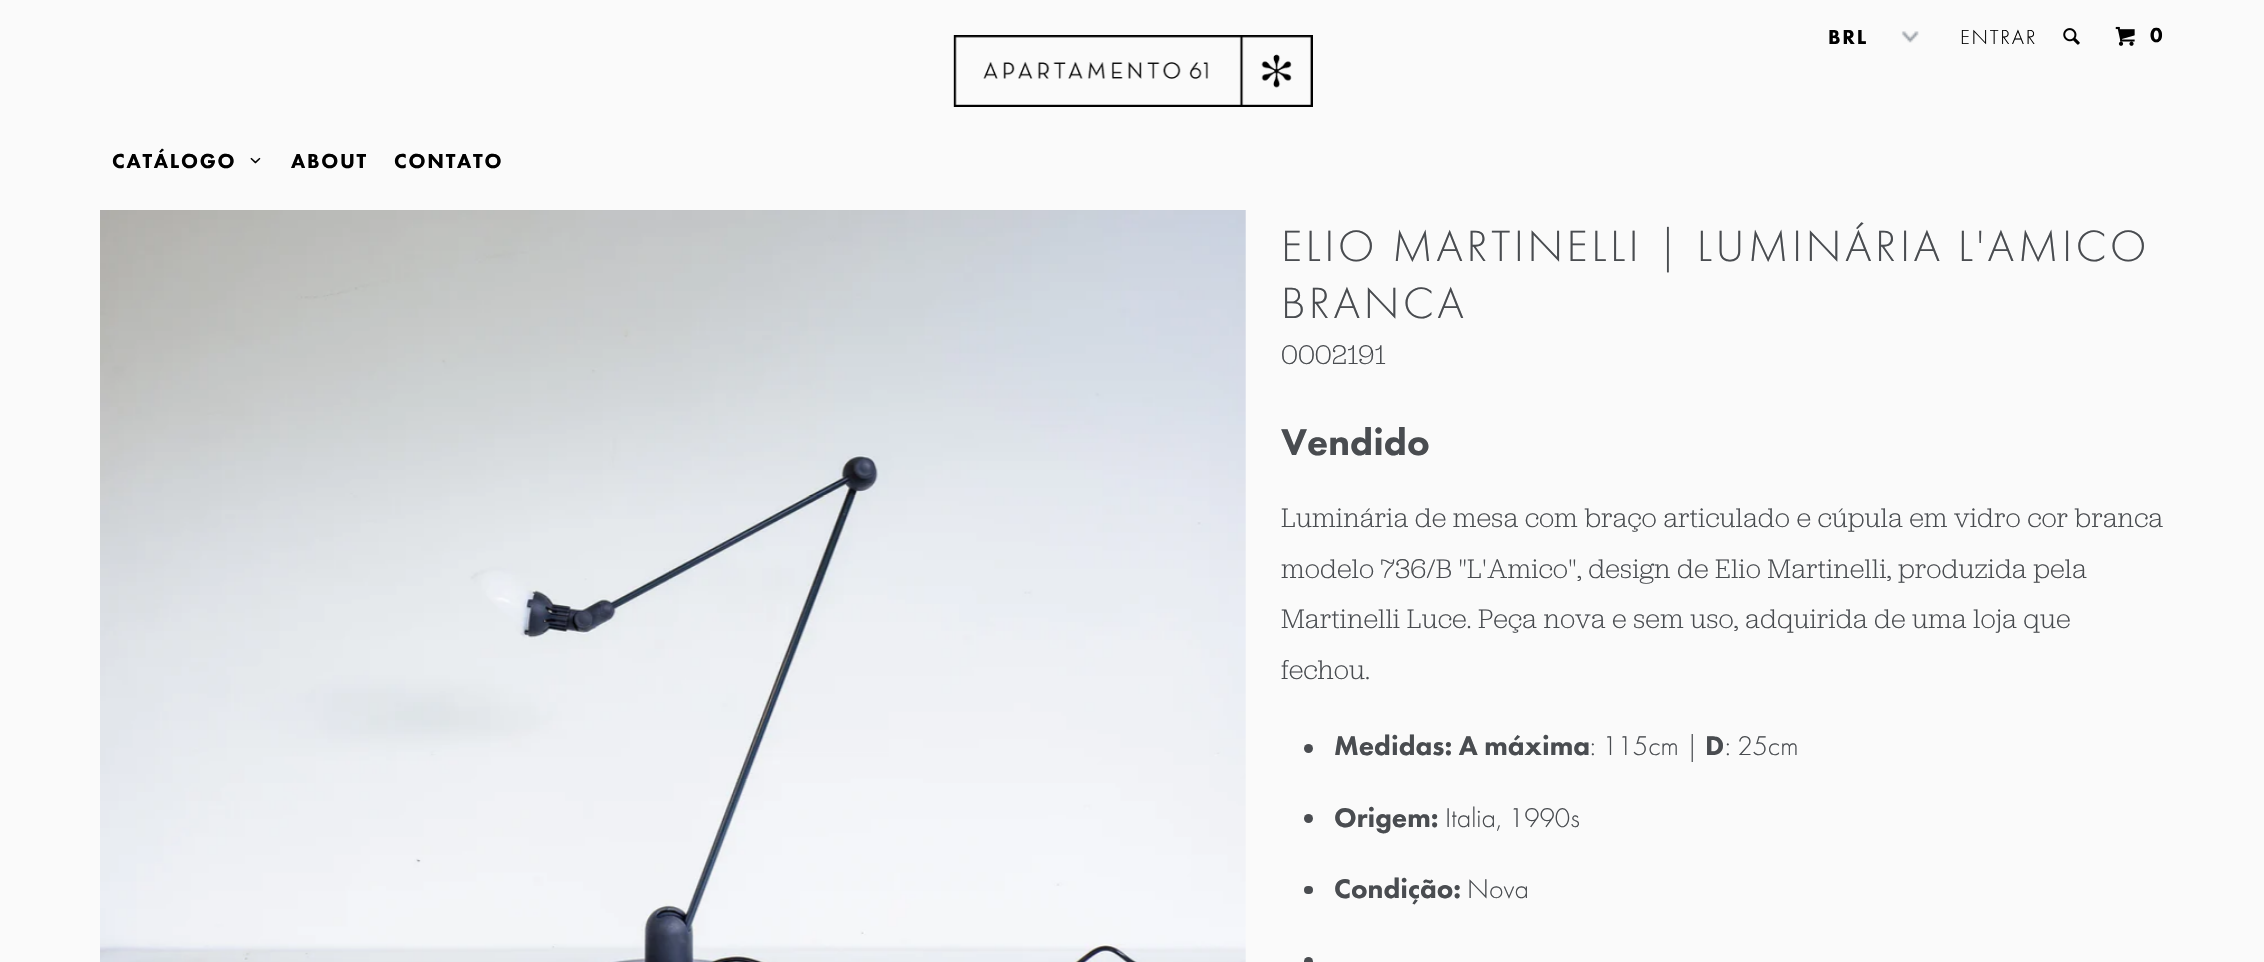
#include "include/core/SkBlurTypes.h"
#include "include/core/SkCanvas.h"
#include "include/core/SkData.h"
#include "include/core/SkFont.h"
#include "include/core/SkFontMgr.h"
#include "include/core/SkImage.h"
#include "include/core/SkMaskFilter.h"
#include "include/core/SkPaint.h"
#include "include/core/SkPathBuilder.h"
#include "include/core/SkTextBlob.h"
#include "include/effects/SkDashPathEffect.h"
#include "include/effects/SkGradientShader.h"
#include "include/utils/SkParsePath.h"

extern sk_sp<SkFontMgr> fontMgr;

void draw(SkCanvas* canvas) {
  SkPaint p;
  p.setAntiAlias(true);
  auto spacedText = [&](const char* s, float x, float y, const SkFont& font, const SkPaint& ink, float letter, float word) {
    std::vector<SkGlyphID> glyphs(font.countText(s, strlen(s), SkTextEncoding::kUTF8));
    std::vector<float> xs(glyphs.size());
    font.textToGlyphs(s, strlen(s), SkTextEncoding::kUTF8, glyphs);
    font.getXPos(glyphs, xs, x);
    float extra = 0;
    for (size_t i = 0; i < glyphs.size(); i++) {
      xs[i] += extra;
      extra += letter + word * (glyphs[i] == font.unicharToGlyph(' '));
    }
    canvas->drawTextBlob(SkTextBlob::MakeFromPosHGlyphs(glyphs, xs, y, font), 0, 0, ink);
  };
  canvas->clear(SkColorSetRGB(250, 250, 250));
  canvas->drawImageRect(SkImages::DeferredFromEncodedData(SkData::MakeFromFileName("images/1.png")), SkRect::MakeLTRB(1901, 31, 1919, 43), SkSamplingOptions());
  canvas->drawImageRect(SkImages::DeferredFromEncodedData(SkData::MakeFromFileName("images/2.png")), SkRect::MakeLTRB(2063, 28, 2080, 45), SkSamplingOptions());
  canvas->drawImageRect(SkImages::DeferredFromEncodedData(SkData::MakeFromFileName("images/3.png")), SkRect::MakeLTRB(2115, 26, 2135, 46), SkSamplingOptions());
  canvas->drawImageRect(SkImages::DeferredFromEncodedData(SkData::MakeFromFileName("images/4.png")), SkRect::MakeLTRB(250, 157, 261, 164), SkSamplingOptions());
  canvas->drawImageRect(SkImages::DeferredFromEncodedData(SkData::MakeFromFileName("images/5.png")), SkRect::MakeLTRB(953, 35, 1313, 107), SkSamplingOptions());
  canvas->drawImageRect(SkImages::DeferredFromEncodedData(SkData::MakeFromFileName("images/6.png")), SkRect::MakeLTRB(100, 210, 1246, 962), SkSamplingOptions());
  p.setColor(SkColorSetRGB(73, 76, 80));
  canvas->drawCircle(1308.5f, 748.5f, 4.5f, p);
  canvas->drawCircle(1308.5f, 818.5f, 4.5f, p);
  canvas->drawRoundRect(SkRect::MakeLTRB(1304, 886, 1313, 894), 4, 4, p);
  canvas->drawCircle(1308.5f, 961.5f, 4.5f, p);
  SkFont font1(fontMgr->matchFamilyStyle("Futura PT", SkFontStyle(900, SkFontStyle::kNormal_Width, SkFontStyle::kUpright_Slant)), 21);
  font1.setSubpixel(true);
  p.setColor(SK_ColorBLACK);
  spacedText("BRL", 1828, 44, font1, p, 1.75f, 0);
  SkFont font2(fontMgr->matchFamilyStyle("Futura PT", SkFontStyle(300, SkFontStyle::kNormal_Width, SkFontStyle::kUpright_Slant)), 21);
  font2.setSubpixel(true);
  spacedText("ENTRAR", 1960, 44, font2, p, 1.75f, 0);
  spacedText("0", 2150, 42, font1, p, 1.75f, 0);
  spacedText("CATÁLOGO", 112, 168, font1, p, 1.75f, 0);
  spacedText("ABOUT", 291, 168, font1, p, 1.75f, 0);
  spacedText("CONTATO", 394, 168, font1, p, 1.75f, 0);
  SkFont font3(fontMgr->matchFamilyStyle("Futura PT", SkFontStyle(300, SkFontStyle::kNormal_Width, SkFontStyle::kUpright_Slant)), 45.5f);
  font3.setSubpixel(true);
  p.setColor(SkColorSetRGB(73, 76, 80));
  spacedText("ELIO MARTINELLI | LUMINÁRIA L'AMICO", 1281, 261, font3, p, 3.5f, 0);
  spacedText("BRANCA", 1281, 318, font3, p, 3.5f, 0);
  SkFont font4(fontMgr->matchFamilyStyle("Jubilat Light", SkFontStyle(300, SkFontStyle::kNormal_Width, SkFontStyle::kUpright_Slant)), 28);
  font4.setSubpixel(true);
  canvas->drawString("0002191", 1281, 364, font4, p);
  SkFont font5(fontMgr->matchFamilyStyle("Futura PT", SkFontStyle(900, SkFontStyle::kNormal_Width, SkFontStyle::kUpright_Slant)), 38.5f);
  font5.setSubpixel(true);
  canvas->drawString("Vendido", 1281, 455, font5, p);
  canvas->drawString("Luminária de mesa com braço articulado e cúpula em vidro cor branca", 1281, 527, font4, p);
  canvas->drawString("modelo 736/B \"L'Amico\", design de Elio Martinelli, produzida pela", 1281, 578, font4, p);
  canvas->drawString("Martinelli Luce. Peça nova e sem uso, adquirida de uma loja que", 1281, 628, font4, p);
  canvas->drawString("fechou.", 1281, 679, font4, p);
  SkFont font6(fontMgr->matchFamilyStyle("Futura PT", SkFontStyle(900, SkFontStyle::kNormal_Width, SkFontStyle::kUpright_Slant)), 28);
  font6.setSubpixel(true);
  canvas->drawString("Medidas: A máxima", 1334, 755, font6, p);
  SkFont font7(fontMgr->matchFamilyStyle("Futura PT", SkFontStyle(300, SkFontStyle::kNormal_Width, SkFontStyle::kUpright_Slant)), 28);
  font7.setSubpixel(true);
  canvas->drawString(": 115cm |", 1590, 755, font7, p);
  canvas->drawString("D", 1705, 755, font6, p);
  canvas->drawString(": 25cm", 1725, 755, font7, p);
  canvas->drawString("Origem:", 1334, 827, font6, p);
  canvas->drawString("Italia, 1990s", 1445, 827, font7, p);
  canvas->drawString("Condição:", 1334, 898, font6, p);
  canvas->drawString("Nova", 1467, 898, font7, p);
}
